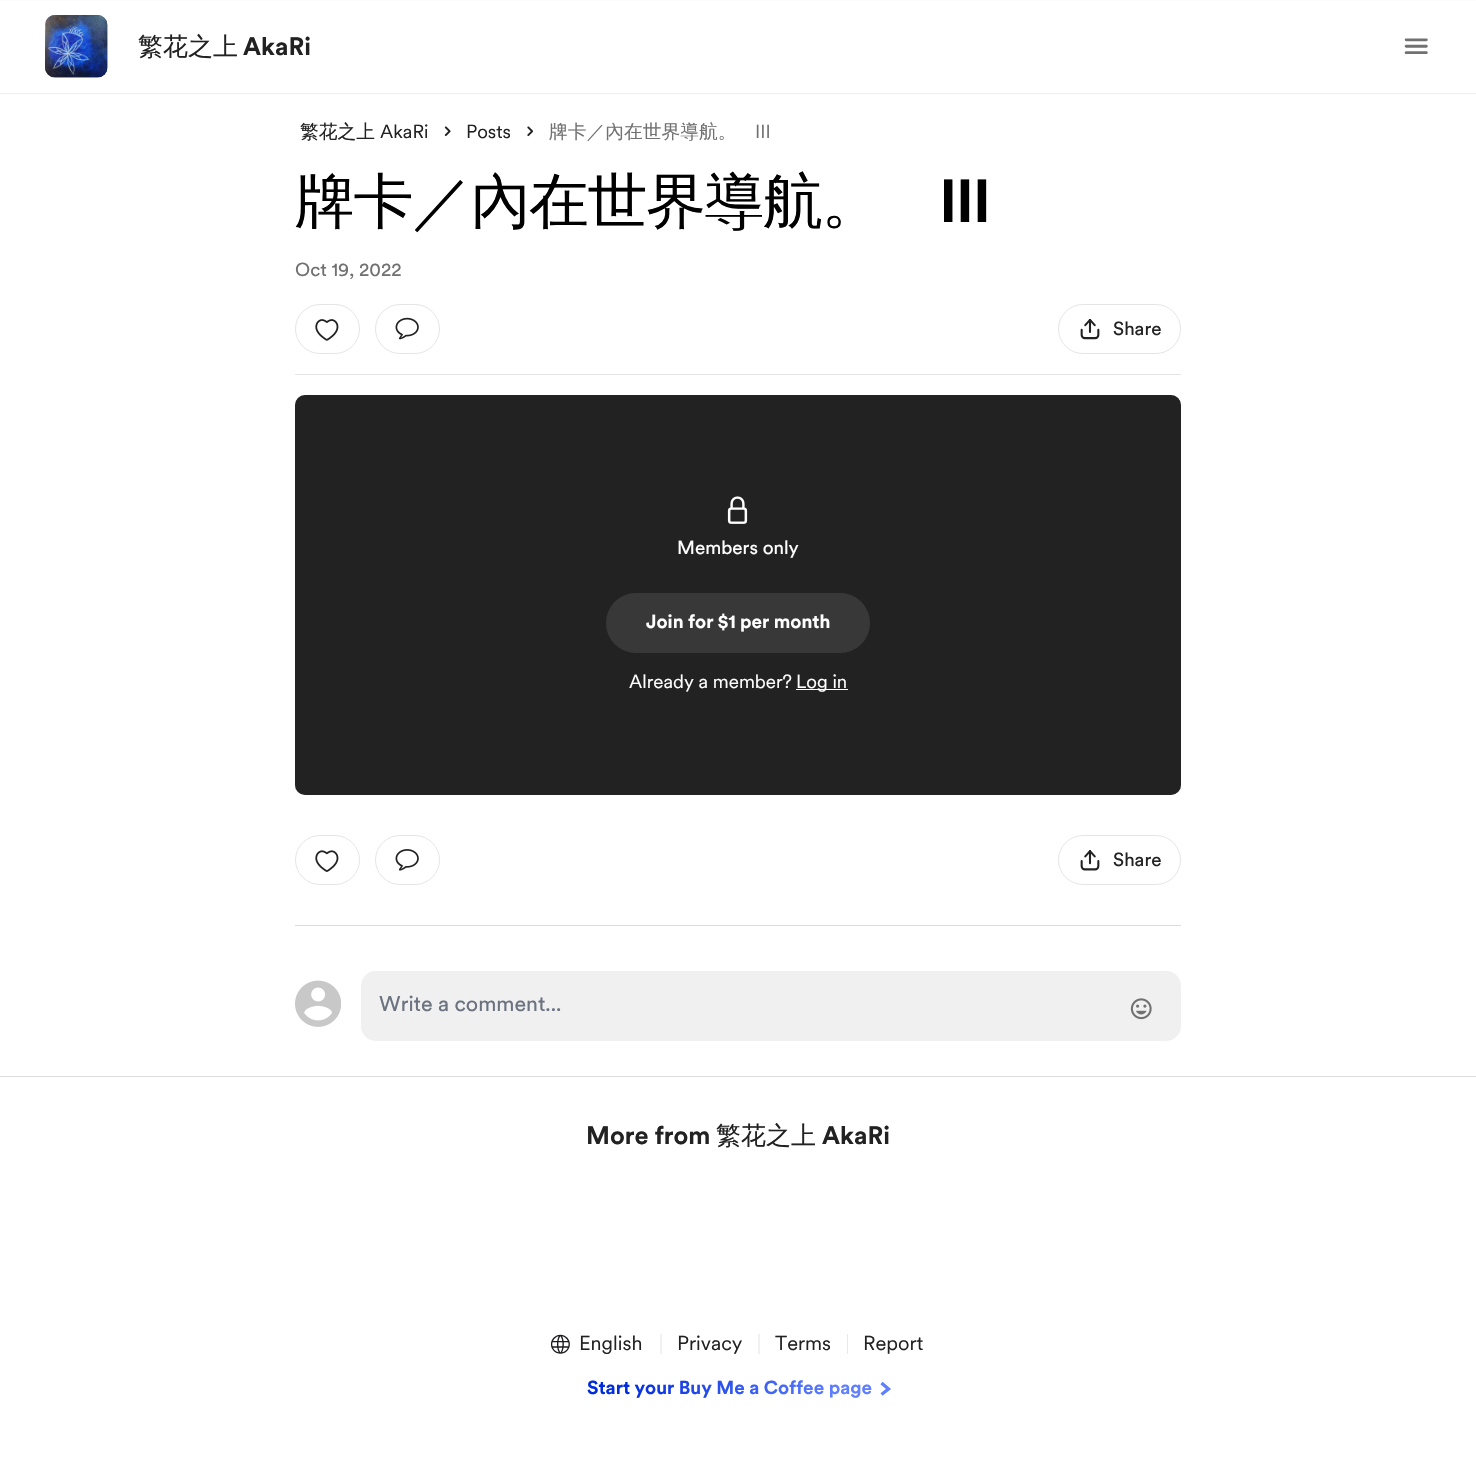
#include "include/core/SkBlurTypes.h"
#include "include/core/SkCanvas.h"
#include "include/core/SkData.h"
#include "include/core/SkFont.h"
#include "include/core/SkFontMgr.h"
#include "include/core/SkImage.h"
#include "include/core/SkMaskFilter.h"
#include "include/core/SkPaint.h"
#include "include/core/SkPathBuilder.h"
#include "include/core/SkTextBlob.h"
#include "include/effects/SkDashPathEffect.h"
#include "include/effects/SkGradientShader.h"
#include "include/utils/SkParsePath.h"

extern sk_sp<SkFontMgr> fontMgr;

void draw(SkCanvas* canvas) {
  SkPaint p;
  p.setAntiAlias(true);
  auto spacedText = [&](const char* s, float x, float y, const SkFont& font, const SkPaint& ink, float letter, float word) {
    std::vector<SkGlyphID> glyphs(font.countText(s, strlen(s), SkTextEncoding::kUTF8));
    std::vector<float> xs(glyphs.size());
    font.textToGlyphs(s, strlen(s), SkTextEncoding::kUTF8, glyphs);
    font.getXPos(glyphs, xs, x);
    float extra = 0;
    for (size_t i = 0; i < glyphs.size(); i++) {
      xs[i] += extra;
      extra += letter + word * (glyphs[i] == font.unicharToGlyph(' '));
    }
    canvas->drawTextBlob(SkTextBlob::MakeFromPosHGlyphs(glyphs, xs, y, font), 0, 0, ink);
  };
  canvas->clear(SK_ColorWHITE);
  p.setColor(SkColorSetARGB(15, 0, 0, 0));
  p.setMaskFilter(SkMaskFilter::MakeBlur(kNormal_SkBlurStyle, 0.5f));
  canvas->drawRect(SkRect::MakeLTRB(0, 1, 1476, 94), p);
  p.setMaskFilter(nullptr);
  p.setColor(SK_ColorWHITE);
  canvas->drawRect(SkRect::MakeLTRB(0, 1, 1476, 93), p);
  canvas->drawImageRect(SkImages::DeferredFromEncodedData(SkData::MakeFromFileName("images/1.png")), SkRect::MakeLTRB(45, 15, 108, 78), SkSamplingOptions());
  canvas->drawImageRect(SkImages::DeferredFromEncodedData(SkData::MakeFromFileName("images/2.png")), SkRect::MakeLTRB(45, 15, 108, 78), SkSamplingOptions());
  canvas->drawImageRect(SkImages::DeferredFromEncodedData(SkData::MakeFromFileName("images/3.png")), SkRect::MakeLTRB(1404, 38, 1428, 54), SkSamplingOptions());
  canvas->drawImageRect(SkImages::DeferredFromEncodedData(SkData::MakeFromFileName("images/4.png")), SkRect::MakeLTRB(444, 126, 451, 137), SkSamplingOptions());
  canvas->drawImageRect(SkImages::DeferredFromEncodedData(SkData::MakeFromFileName("images/5.png")), SkRect::MakeLTRB(527, 126, 534, 137), SkSamplingOptions());
  p.setColor(SkColorSetRGB(229, 229, 229));
  canvas->drawRect(SkRect::MakeLTRB(295, 374, 1181, 375), p);
  p.setStyle(SkPaint::kStroke_Style);
  p.setStrokeWidth(1);
  canvas->drawRoundRect(SkRect::MakeLTRB(295.5f, 304.5f, 359.5f, 353.5f), 24.5f, 24.5f, p);
  canvas->drawImageRect(SkImages::DeferredFromEncodedData(SkData::MakeFromFileName("images/6.png")), SkRect::MakeLTRB(315, 319, 339, 341), SkSamplingOptions());
  canvas->drawRoundRect(SkRect::MakeLTRB(375.5f, 304.5f, 439.5f, 353.5f), 24.5f, 24.5f, p);
  canvas->drawImageRect(SkImages::DeferredFromEncodedData(SkData::MakeFromFileName("images/7.png")), SkRect::MakeLTRB(395, 317, 419, 340), SkSamplingOptions());
  canvas->drawRoundRect(SkRect::MakeLTRB(1058.5f, 304.5f, 1180.5f, 353.5f), 24.5f, 24.5f, p);
  canvas->drawImageRect(SkImages::DeferredFromEncodedData(SkData::MakeFromFileName("images/8.png")), SkRect::MakeLTRB(1080, 319, 1100, 340), SkSamplingOptions());
  p.setStyle(SkPaint::kFill_Style);
  p.setColor(SkColorSetRGB(34, 34, 34));
  canvas->drawRoundRect(SkRect::MakeLTRB(295, 395, 1181, 795), 10, 10, p);
  p.setColor(SkColorSetARGB(77, 34, 34, 34));
  canvas->drawRoundRect(SkRect::MakeLTRB(295, 395, 1181, 795), 10, 10, p);
  canvas->drawImageRect(SkImages::DeferredFromEncodedData(SkData::MakeFromFileName("images/9.png")), SkRect::MakeLTRB(727, 496, 748, 524), SkSamplingOptions());
  p.setColor(SkColorSetRGB(56, 56, 56));
  canvas->drawRoundRect(SkRect::MakeLTRB(606, 593, 870, 653), 30, 30, p);
  p.setColor(SK_ColorWHITE);
  canvas->drawRect(SkRect::MakeLTRB(796, 689, 848, 690), p);
  p.setStyle(SkPaint::kStroke_Style);
  p.setColor(SkColorSetRGB(229, 229, 229));
  canvas->drawRoundRect(SkRect::MakeLTRB(295.5f, 835.5f, 359.5f, 884.5f), 24.5f, 24.5f, p);
  canvas->drawImageRect(SkImages::DeferredFromEncodedData(SkData::MakeFromFileName("images/10.png")), SkRect::MakeLTRB(315, 850, 339, 872), SkSamplingOptions());
  canvas->drawRoundRect(SkRect::MakeLTRB(375.5f, 835.5f, 439.5f, 884.5f), 24.5f, 24.5f, p);
  canvas->drawImageRect(SkImages::DeferredFromEncodedData(SkData::MakeFromFileName("images/11.png")), SkRect::MakeLTRB(395, 849, 419, 871), SkSamplingOptions());
  canvas->drawRoundRect(SkRect::MakeLTRB(1058.5f, 835.5f, 1180.5f, 884.5f), 24.5f, 24.5f, p);
  canvas->drawImageRect(SkImages::DeferredFromEncodedData(SkData::MakeFromFileName("images/12.png")), SkRect::MakeLTRB(1080, 850, 1100, 871), SkSamplingOptions());
  p.setStyle(SkPaint::kFill_Style);
  p.setColor(SkColorSetRGB(221, 221, 221));
  canvas->drawRect(SkRect::MakeLTRB(295, 925, 1181, 926), p);
  canvas->drawImageRect(SkImages::DeferredFromEncodedData(SkData::MakeFromFileName("images/13.png")), SkRect::MakeLTRB(295, 980, 341, 1027), SkSamplingOptions());
  p.setColor(SkColorSetRGB(240, 240, 240));
  canvas->drawRoundRect(SkRect::MakeLTRB(361, 971, 1181, 1041), 15, 15, p);
  canvas->drawImageRect(SkImages::DeferredFromEncodedData(SkData::MakeFromFileName("images/14.png")), SkRect::MakeLTRB(1130, 998, 1152, 1020), SkSamplingOptions());
  p.setColor(SkColorSetRGB(221, 221, 221));
  canvas->drawRect(SkRect::MakeLTRB(0, 1076, 1476, 1077), p);
  canvas->drawImageRect(SkImages::DeferredFromEncodedData(SkData::MakeFromFileName("images/15.png")), SkRect::MakeLTRB(550, 1334, 570, 1354), SkSamplingOptions());
  p.setStyle(SkPaint::kStroke_Style);
  p.setStrokeWidth(1.2f);
  p.setColor(SkColorSetRGB(232, 232, 232));
  canvas->drawPath(SkPathBuilder().moveTo(661, 1334).lineTo(661, 1354).detach(), p);
  canvas->drawPath(SkPathBuilder().moveTo(759, 1334).lineTo(759, 1354).detach(), p);
  p.setStyle(SkPaint::kFill_Style);
  canvas->drawRect(SkRect::MakeLTRB(847, 1334, 848, 1354), p);
  p.setStyle(SkPaint::kStroke_Style);
  p.setStrokeWidth(3.3f);
  p.setColor(SkColorSetRGB(95, 127, 255));
  canvas->drawPath(SkPathBuilder().moveTo(881.5f, 1383).lineTo(888.5f, 1389).lineTo(881.5f, 1394.5f).detach(), p);
  SkFont font1(fontMgr->matchFamilyStyle("WenQuanYi Zen Hei", SkFontStyle(500, SkFontStyle::kNormal_Width, SkFontStyle::kUpright_Slant)), 25);
  font1.setSubpixel(true);
  p.setStyle(SkPaint::kFill_Style);
  p.setColor(SkColorSetRGB(34, 34, 34));
  canvas->drawString("繁花之上", 138, 55, font1, p);
  SkFont font2(fontMgr->matchFamilyStyle("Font", SkFontStyle::Bold()), 25);
  font2.setSubpixel(true);
  canvas->drawString("AkaRi", 243, 55, font2, p);
  SkFont font3(fontMgr->matchFamilyStyle("WenQuanYi Zen Hei", SkFontStyle(500, SkFontStyle::kNormal_Width, SkFontStyle::kUpright_Slant)), 18.75f);
  font3.setSubpixel(true);
  canvas->drawString("繁花之上", 300, 138, font3, p);
  SkFont font4(fontMgr->matchFamilyStyle("Font", SkFontStyle::Normal()), 18.75f);
  font4.setSubpixel(true);
  canvas->drawString("AkaRi", 380, 138, font4, p);
  canvas->drawString("Posts", 466, 138, font4, p);
  p.setColor(SkColorSetRGB(113, 113, 113));
  canvas->drawString("牌卡／內在世界導航。", 549, 138, font3, p);
  canvas->drawString("III", 755, 138, font4, p);
  SkFont font5(fontMgr->matchFamilyStyle("WenQuanYi Zen Hei", SkFontStyle(500, SkFontStyle::kNormal_Width, SkFontStyle::kUpright_Slant)), 60);
  font5.setSubpixel(true);
  p.setColor(SK_ColorBLACK);
  spacedText("牌卡／內在世界導航。", 295, 222, font5, p, -1.5f, 0);
  SkFont font6(fontMgr->matchFamilyStyle("Font", SkFontStyle::Bold()), 60);
  font6.setSubpixel(true);
  spacedText("III", 939, 222, font6, p, -1.5f, 0);
  SkFont font7(fontMgr->matchFamilyStyle("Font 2", SkFontStyle::Normal()), 18.75f);
  font7.setSubpixel(true);
  p.setColor(SkColorSetRGB(113, 113, 113));
  canvas->drawString("Oct 19, 2022", 295, 276, font7, p);
  p.setColor(SkColorSetRGB(34, 34, 34));
  canvas->drawString("Share", 1113, 335, font7, p);
  p.setColor(SK_ColorWHITE);
  canvas->drawString("Members only", 677, 554, font7, p);
  SkFont font8(fontMgr->matchFamilyStyle("Font", SkFontStyle::Bold()), 18.75f);
  font8.setSubpixel(true);
  canvas->drawString("Join for $1 per month", 646, 628, font8, p);
  canvas->drawString("Already a member?", 629, 688, font4, p);
  canvas->drawString("Log in", 796, 688, font4, p);
  p.setColor(SkColorSetRGB(34, 34, 34));
  canvas->drawString("Share", 1113, 866, font7, p);
  SkFont font9(fontMgr->matchFamilyStyle("Font 2", SkFontStyle::Normal()), 21.25f);
  font9.setSubpixel(true);
  p.setColor(SkColorSetRGB(107, 114, 128));
  canvas->drawString("Write a comment...", 379, 1011, font9, p);
  p.setColor(SkColorSetRGB(34, 34, 34));
  canvas->drawString("More from", 586, 1144, font2, p);
  canvas->drawString("繁花之上", 716, 1144, font1, p);
  canvas->drawString("AkaRi", 822, 1144, font2, p);
  SkFont font10(fontMgr->matchFamilyStyle("Font", SkFontStyle::Normal()), 20);
  font10.setSubpixel(true);
  canvas->drawString("English", 579, 1350, font10, p);
  canvas->drawString("Privacy", 677, 1350, font10, p);
  canvas->drawString("Terms", 775, 1350, font10, p);
  canvas->drawString("Report", 863, 1350, font10, p);
  {
    const SkColor colors[] = {SkColorSetRGB(0, 44, 222), SkColorSetRGB(95, 127, 255)};
    const float stops[] = {0.14f, 0.82f};
    const SkPoint ends[] = {{605, 1331}, {871, 1444}};
    p.setShader(SkGradientShader::MakeLinear(ends, colors, stops, 2, SkTileMode::kClamp));
    p.setAlpha(255);
  }
  canvas->drawString("Start your Buy Me a Coffee page", 587, 1394, font8, p);
}
